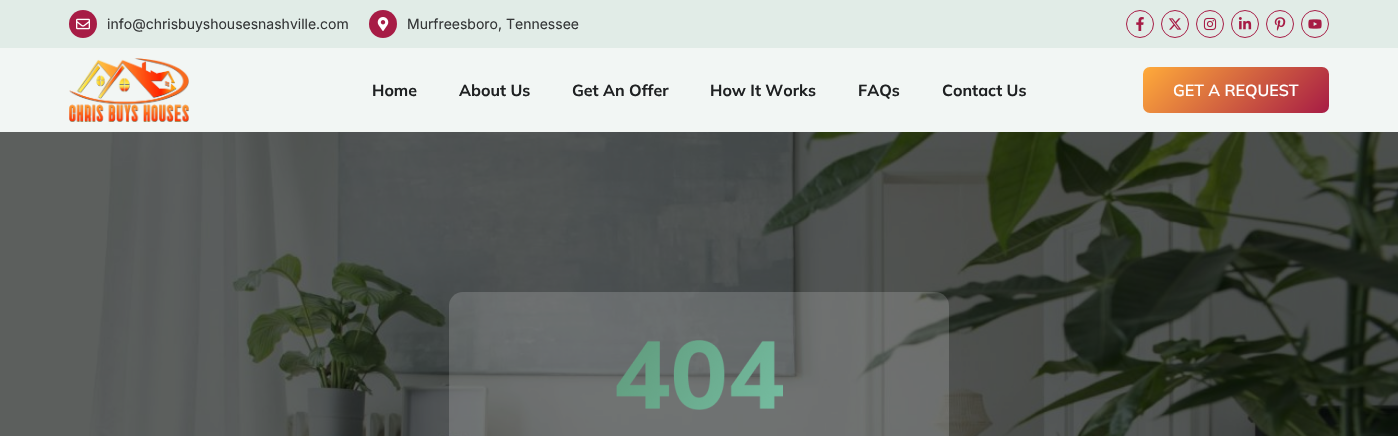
#include "include/core/SkBlurTypes.h"
#include "include/core/SkCanvas.h"
#include "include/core/SkData.h"
#include "include/core/SkFont.h"
#include "include/core/SkFontMgr.h"
#include "include/core/SkImage.h"
#include "include/core/SkMaskFilter.h"
#include "include/core/SkPaint.h"
#include "include/core/SkPathBuilder.h"
#include "include/core/SkTextBlob.h"
#include "include/effects/SkDashPathEffect.h"
#include "include/effects/SkGradientShader.h"
#include "include/utils/SkParsePath.h"

extern sk_sp<SkFontMgr> fontMgr;

void draw(SkCanvas* canvas) {
  SkPaint p;
  p.setAntiAlias(true);
  canvas->clear(SkColorSetRGB(92, 95, 93));
  p.setColor(SkColorSetRGB(225, 236, 231));
  canvas->drawRect(SkRect::MakeLTRB(0, 0, 1398, 48), p);
  p.setColor(SkColorSetRGB(167, 28, 69));
  canvas->drawCircle(83, 24, 14, p);
  canvas->drawImageRect(SkImages::DeferredFromEncodedData(SkData::MakeFromFileName("images/1.png")), SkRect::MakeLTRB(76, 18, 90, 30), SkSamplingOptions());
  canvas->drawCircle(383, 24, 14, p);
  canvas->drawImageRect(SkImages::DeferredFromEncodedData(SkData::MakeFromFileName("images/2.png")), SkRect::MakeLTRB(377, 17, 389, 31), SkSamplingOptions());
  p.setStyle(SkPaint::kStroke_Style);
  p.setStrokeWidth(1);
  canvas->drawCircle(1140, 24, 13.5f, p);
  canvas->drawImageRect(SkImages::DeferredFromEncodedData(SkData::MakeFromFileName("images/3.png")), SkRect::MakeLTRB(1136, 17, 1144, 31), SkSamplingOptions());
  canvas->drawCircle(1175, 24, 13.5f, p);
  canvas->drawImageRect(SkImages::DeferredFromEncodedData(SkData::MakeFromFileName("images/4.png")), SkRect::MakeLTRB(1168, 18, 1182, 30), SkSamplingOptions());
  canvas->drawCircle(1210, 24, 13.5f, p);
  canvas->drawImageRect(SkImages::DeferredFromEncodedData(SkData::MakeFromFileName("images/5.png")), SkRect::MakeLTRB(1203, 17, 1217, 31), SkSamplingOptions());
  canvas->drawCircle(1245, 24, 13.5f, p);
  canvas->drawImageRect(SkImages::DeferredFromEncodedData(SkData::MakeFromFileName("images/6.png")), SkRect::MakeLTRB(1238, 17, 1252, 30), SkSamplingOptions());
  canvas->drawCircle(1280, 24, 13.5f, p);
  canvas->drawImageRect(SkImages::DeferredFromEncodedData(SkData::MakeFromFileName("images/7.png")), SkRect::MakeLTRB(1274, 17, 1286, 31), SkSamplingOptions());
  canvas->drawCircle(1315, 24, 13.5f, p);
  canvas->drawImageRect(SkImages::DeferredFromEncodedData(SkData::MakeFromFileName("images/8.png")), SkRect::MakeLTRB(1308, 19, 1322, 29), SkSamplingOptions());
  p.setStyle(SkPaint::kFill_Style);
  p.setColor(SkColorSetRGB(242, 246, 244));
  canvas->drawRect(SkRect::MakeLTRB(0, 48, 1398, 132), p);
  canvas->drawImageRect(SkImages::DeferredFromEncodedData(SkData::MakeFromFileName("images/9.png")), SkRect::MakeLTRB(69, 58, 189, 122), SkSamplingOptions());
  {
    const SkColor colors[] = {SkColorSetRGB(255, 171, 58), SkColorSetRGB(167, 28, 69)};
    const float stops[] = {0, 1};
    const SkPoint ends[] = {{1178, 32}, {1294, 148}};
    p.setShader(SkGradientShader::MakeLinear(ends, colors, stops, 2, SkTileMode::kClamp));
    p.setAlpha(255);
  }
  canvas->drawRoundRect(SkRect::MakeLTRB(1143, 67, 1329, 113), 7, 7, p);
  canvas->drawImageRect(SkImages::DeferredFromEncodedData(SkData::MakeFromFileName("images/10.png")), SkRect::MakeLTRB(89, 132, 1398, 436), SkSamplingOptions());
  p.setShader(nullptr);
  p.setColor(SkColorSetARGB(43, 255, 255, 255));
  canvas->drawRoundRect(SkRect::MakeLTRB(449, 292, 949, 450), 14, 14, p);
  canvas->drawImageRect(SkImages::DeferredFromEncodedData(SkData::MakeFromFileName("images/11.png")), SkRect::MakeLTRB(616, 340, 783, 410), SkSamplingOptions());
  SkFont font1(fontMgr->matchFamilyStyle("Inter", SkFontStyle::Normal()), 14);
  font1.setSubpixel(true);
  p.setColor(SkColorSetRGB(53, 55, 56));
  canvas->drawString("info@chrisbuyshousesnashville.com", 107, 29, font1, p);
  canvas->drawString("Murfreesboro, Tennessee", 407, 29, font1, p);
  SkFont font2(fontMgr->matchFamilyStyle("Mulish", SkFontStyle::Bold()), 16);
  font2.setSubpixel(true);
  p.setColor(SkColorSetRGB(31, 33, 34));
  canvas->drawString("Home", 372, 96, font2, p);
  canvas->drawString("About Us", 459, 96, font2, p);
  canvas->drawString("Get An Offer", 572, 96, font2, p);
  canvas->drawString("How It Works", 710, 96, font2, p);
  canvas->drawString("FAQs", 858, 96, font2, p);
  canvas->drawString("Contact Us", 942, 96, font2, p);
  SkFont font3(fontMgr->matchFamilyStyle("Mulish", SkFontStyle(600, SkFontStyle::kNormal_Width, SkFontStyle::kUpright_Slant)), 16);
  font3.setSubpixel(true);
  p.setColor(SK_ColorWHITE);
  canvas->drawString("GET A REQUEST", 1173, 96, font3, p);
}
